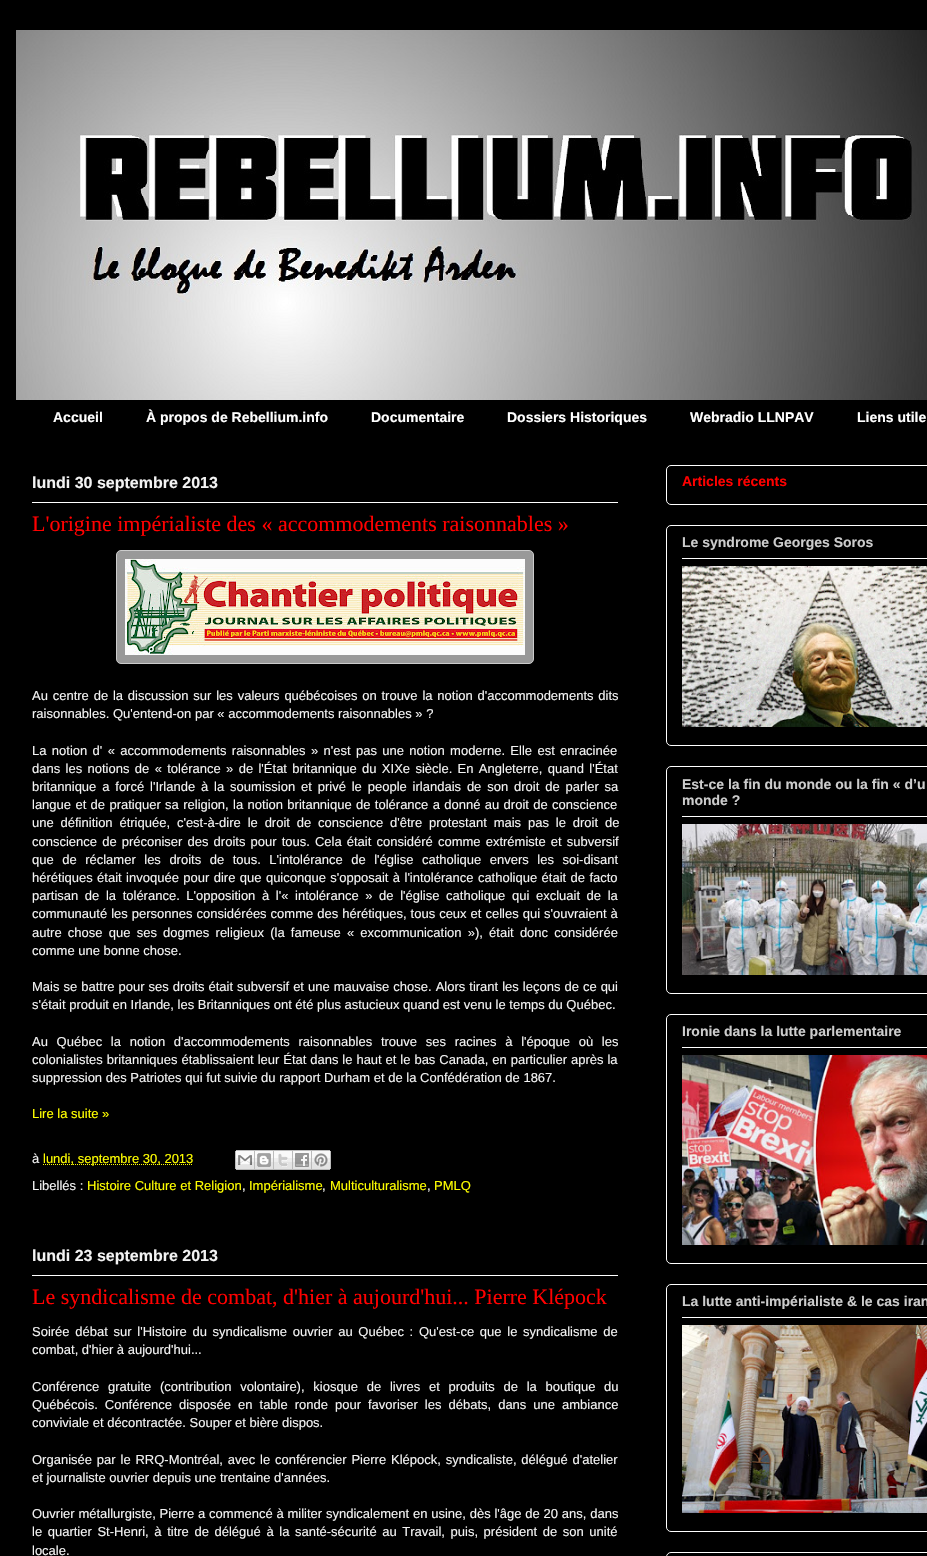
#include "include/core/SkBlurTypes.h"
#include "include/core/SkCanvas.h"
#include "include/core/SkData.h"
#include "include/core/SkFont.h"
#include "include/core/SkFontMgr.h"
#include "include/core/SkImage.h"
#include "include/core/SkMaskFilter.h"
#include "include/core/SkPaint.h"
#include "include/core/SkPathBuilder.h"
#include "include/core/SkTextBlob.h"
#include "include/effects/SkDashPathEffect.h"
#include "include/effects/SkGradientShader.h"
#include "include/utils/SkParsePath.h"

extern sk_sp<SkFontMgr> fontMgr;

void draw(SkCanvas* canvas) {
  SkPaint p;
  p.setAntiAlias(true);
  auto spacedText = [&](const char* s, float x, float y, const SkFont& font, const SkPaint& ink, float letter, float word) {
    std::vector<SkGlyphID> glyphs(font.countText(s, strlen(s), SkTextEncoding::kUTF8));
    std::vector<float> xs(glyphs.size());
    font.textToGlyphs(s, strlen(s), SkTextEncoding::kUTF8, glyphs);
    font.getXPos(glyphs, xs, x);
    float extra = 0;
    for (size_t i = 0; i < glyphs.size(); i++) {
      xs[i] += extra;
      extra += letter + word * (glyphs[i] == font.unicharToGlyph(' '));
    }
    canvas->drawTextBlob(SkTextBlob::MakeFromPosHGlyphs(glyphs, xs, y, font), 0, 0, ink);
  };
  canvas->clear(SK_ColorBLACK);
  canvas->drawImageRect(SkImages::DeferredFromEncodedData(SkData::MakeFromFileName("images/1.png")), SkRect::MakeLTRB(16, 30, 927, 400), SkSamplingOptions());
  p.setColor(SK_ColorWHITE);
  canvas->drawRect(SkRect::MakeLTRB(32, 502, 618, 503), p);
  p.setColor(SkColorSetRGB(153, 153, 153));
  canvas->drawRoundRect(SkRect::MakeLTRB(116.5f, 550.5f, 533.5f, 663.5f), 4.5f, 4.5f, p);
  p.setStyle(SkPaint::kStroke_Style);
  p.setStrokeWidth(1);
  p.setColor(SkColorSetRGB(204, 204, 204));
  canvas->drawRoundRect(SkRect::MakeLTRB(116.5f, 550.5f, 533.5f, 663.5f), 4.5f, 4.5f, p);
  canvas->drawImageRect(SkImages::DeferredFromEncodedData(SkData::MakeFromFileName("images/2.png")), SkRect::MakeLTRB(125, 559, 525, 655), SkSamplingOptions());
  p.setColor(SkColorSetRGB(255, 255, 0));
  p.setPathEffect(SkDashPathEffect::Make({{1, 1}}, 0));
  canvas->drawPath(SkPathBuilder().moveTo(43, 1164.5f).lineTo(193, 1164.5f).detach(), p);
  p.setPathEffect(nullptr);
  canvas->drawImageRect(SkImages::DeferredFromEncodedData(SkData::MakeFromFileName("images/3.png")), SkRect::MakeLTRB(235, 1150, 255, 1170), SkSamplingOptions());
  canvas->drawImageRect(SkImages::DeferredFromEncodedData(SkData::MakeFromFileName("images/4.png")), SkRect::MakeLTRB(255, 1150, 274, 1170), SkSamplingOptions());
  canvas->drawImageRect(SkImages::DeferredFromEncodedData(SkData::MakeFromFileName("images/5.png")), SkRect::MakeLTRB(274, 1150, 293, 1170), SkSamplingOptions());
  canvas->drawImageRect(SkImages::DeferredFromEncodedData(SkData::MakeFromFileName("images/6.png")), SkRect::MakeLTRB(293, 1150, 312, 1170), SkSamplingOptions());
  canvas->drawImageRect(SkImages::DeferredFromEncodedData(SkData::MakeFromFileName("images/7.png")), SkRect::MakeLTRB(312, 1150, 331, 1170), SkSamplingOptions());
  p.setStyle(SkPaint::kFill_Style);
  p.setColor(SK_ColorWHITE);
  canvas->drawRect(SkRect::MakeLTRB(32, 1275, 618, 1276), p);
  p.setStyle(SkPaint::kStroke_Style);
  canvas->drawRoundRect(SkRect::MakeLTRB(666.5f, 465.5f, 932.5f, 504.5f), 4.5f, 4.5f, p);
  canvas->drawRoundRect(SkRect::MakeLTRB(666.5f, 525.5f, 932.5f, 745.5f), 4.5f, 4.5f, p);
  p.setStyle(SkPaint::kFill_Style);
  canvas->drawRect(SkRect::MakeLTRB(682, 558, 927, 559), p);
  canvas->drawImageRect(SkImages::DeferredFromEncodedData(SkData::MakeFromFileName("images/8.png")), SkRect::MakeLTRB(682, 566, 927, 727), SkSamplingOptions());
  p.setStyle(SkPaint::kStroke_Style);
  canvas->drawRoundRect(SkRect::MakeLTRB(666.5f, 766.5f, 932.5f, 993.5f), 4.5f, 4.5f, p);
  p.setStyle(SkPaint::kFill_Style);
  canvas->drawRect(SkRect::MakeLTRB(682, 816, 927, 817), p);
  canvas->drawImageRect(SkImages::DeferredFromEncodedData(SkData::MakeFromFileName("images/9.png")), SkRect::MakeLTRB(682, 824, 927, 975), SkSamplingOptions());
  p.setStyle(SkPaint::kStroke_Style);
  canvas->drawRoundRect(SkRect::MakeLTRB(666.5f, 1014.5f, 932.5f, 1263.5f), 4.5f, 4.5f, p);
  p.setStyle(SkPaint::kFill_Style);
  canvas->drawRect(SkRect::MakeLTRB(682, 1047, 927, 1048), p);
  canvas->drawImageRect(SkImages::DeferredFromEncodedData(SkData::MakeFromFileName("images/10.png")), SkRect::MakeLTRB(682, 1055, 927, 1245), SkSamplingOptions());
  p.setStyle(SkPaint::kStroke_Style);
  canvas->drawRoundRect(SkRect::MakeLTRB(666.5f, 1284.5f, 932.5f, 1531.5f), 4.5f, 4.5f, p);
  p.setStyle(SkPaint::kFill_Style);
  canvas->drawRect(SkRect::MakeLTRB(682, 1317, 927, 1318), p);
  canvas->drawImageRect(SkImages::DeferredFromEncodedData(SkData::MakeFromFileName("images/11.png")), SkRect::MakeLTRB(682, 1325, 927, 1513), SkSamplingOptions());
  p.setStyle(SkPaint::kStroke_Style);
  canvas->drawRoundRect(SkRect::MakeLTRB(666.5f, 1552.5f, 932.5f, 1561.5f), 4.5f, 4.5f, p);
  SkFont font1(fontMgr->matchFamilyStyle("Liberation Sans", SkFontStyle::Bold()), 14);
  font1.setSubpixel(true);
  p.setStyle(SkPaint::kFill_Style);
  canvas->drawString("Accueil", 53, 422, font1, p);
  canvas->drawString("À propos de Rebellium.info", 146, 422, font1, p);
  canvas->drawString("Documentaire", 371, 422, font1, p);
  canvas->drawString("Dossiers Historiques", 507, 422, font1, p);
  canvas->drawString("Webradio LLNPAV", 690, 422, font1, p);
  canvas->drawString("Liens utile", 857, 422, font1, p);
  SkFont font2(fontMgr->matchFamilyStyle("Liberation Sans", SkFontStyle::Bold()), 16);
  font2.setSubpixel(true);
  p.setColor(SkColorSetRGB(243, 243, 243));
  canvas->drawString("lundi 30 septembre 2013", 32, 488, font2, p);
  SkFont font3(fontMgr->matchFamilyStyle("Liberation Serif", SkFontStyle::Normal()), 22);
  font3.setSubpixel(true);
  p.setColor(SkColorSetRGB(255, 0, 0));
  canvas->drawString("L'origine impérialiste des « accommodements raisonnables »", 32, 531, font3, p);
  SkFont font4(fontMgr->matchFamilyStyle("Liberation Sans", SkFontStyle::Normal()), 13);
  font4.setSubpixel(true);
  p.setColor(SkColorSetRGB(243, 243, 243));
  spacedText("Au centre de la discussion sur les valeurs québécoises on trouve la notion d'accommodements dits", 32, 700, font4, p, 0, 1.2f);
  canvas->drawString("raisonnables. Qu'entend-on par « accommodements raisonnables » ?", 32, 718, font4, p);
  spacedText("La notion d' « accommodements raisonnables » n'est pas une notion moderne. Elle est enracinée", 32, 755, font4, p, 0, 1.75f);
  spacedText("dans les notions de « tolérance » de l'État britannique du XIXe siècle. En Angleterre, quand l'État", 32, 773, font4, p, 0, 1.75f);
  spacedText("britannique a forcé l'Irlande à la soumission et privé le people irlandais de son droit de parler sa", 32, 791, font4, p, 0, 2.25f);
  spacedText("langue et de pratiquer sa religion, la notion britannique de tolérance a donné au droit de conscience", 32, 809, font4, p, 0, 0.75f);
  spacedText("une définition étriquée, c'est-à-dire le droit de conscience d'être protestant mais pas le droit de", 32, 827, font4, p, 0, 3.25f);
  spacedText("conscience de préconiser des droits pour tous. Cela était considéré comme extrémiste et subversif", 32, 846, font4, p, 0, 1.5f);
  spacedText("que de réclamer les droits de tous. L'intolérance de l'église catholique envers les soi-disant", 32, 864, font4, p, 0, 4.9f);
  spacedText("hérétiques était invoquée pour dire que quiconque s'opposait à l'intolérance catholique était de facto", 32, 882, font4, p, 0, 0.8f);
  spacedText("partisan de la tolérance. L'opposition à l'« intolérance » de l'église catholique qui excluait de la", 32, 900, font4, p, 0, 3);
  spacedText("communauté les personnes considérées comme des hérétiques, tous ceux et celles qui s'ouvraient à", 32, 918, font4, p, 0, 0.4f);
  spacedText("autre chose que ses dogmes religieux (la fameuse « excommunication »), était donc considérée", 32, 937, font4, p, 0, 2.6f);
  canvas->drawString("comme une bonne chose.", 32, 955, font4, p);
  spacedText("Mais se battre pour ses droits était subversif et une mauvaise chose. Alors tirant les leçons de ce qui", 32, 991, font4, p, 0, 0.4f);
  canvas->drawString("s'était produit en Irlande, les Britanniques ont été plus astucieux quand est venu le temps du Québec.", 32, 1009, font4, p);
  spacedText("Au Québec la notion d'accommodements raisonnables trouve ses racines à l'époque où les", 32, 1046, font4, p, 0, 5.1f);
  spacedText("colonialistes britanniques établissaient leur État dans le haut et le bas Canada, en particulier après la", 32, 1064, font4, p, 0, 0.3f);
  canvas->drawString("suppression des Patriotes qui fut suivie du rapport Durham et de la Confédération de 1867.", 32, 1082, font4, p);
  p.setColor(SkColorSetRGB(255, 255, 0));
  canvas->drawString("Lire la suite »", 32, 1118, font4, p);
  p.setColor(SkColorSetRGB(243, 243, 243));
  canvas->drawString("à", 32, 1163, font4, p);
  p.setColor(SkColorSetRGB(255, 255, 0));
  canvas->drawString("lundi, septembre 30, 2013", 43, 1163, font4, p);
  p.setColor(SkColorSetRGB(243, 243, 243));
  canvas->drawString("Libellés :", 32, 1190, font4, p);
  p.setColor(SkColorSetRGB(255, 255, 0));
  canvas->drawString("Histoire Culture et Religion", 87, 1190, font4, p);
  p.setColor(SkColorSetRGB(243, 243, 243));
  canvas->drawString(",", 242, 1190, font4, p);
  p.setColor(SkColorSetRGB(255, 255, 0));
  canvas->drawString("Impérialisme", 249, 1190, font4, p);
  p.setColor(SkColorSetRGB(243, 243, 243));
  canvas->drawString(",", 322, 1190, font4, p);
  p.setColor(SkColorSetRGB(255, 255, 0));
  canvas->drawString("Multiculturalisme", 330, 1190, font4, p);
  p.setColor(SkColorSetRGB(243, 243, 243));
  canvas->drawString(",", 427, 1190, font4, p);
  p.setColor(SkColorSetRGB(255, 255, 0));
  canvas->drawString("PMLQ", 434, 1190, font4, p);
  p.setColor(SkColorSetRGB(243, 243, 243));
  canvas->drawString("lundi 23 septembre 2013", 32, 1261, font2, p);
  p.setColor(SkColorSetRGB(255, 0, 0));
  canvas->drawString("Le syndicalisme de combat, d'hier à aujourd'hui... Pierre Klépock", 32, 1304, font3, p);
  p.setColor(SkColorSetRGB(243, 243, 243));
  spacedText("Soirée débat sur l'Histoire du syndicalisme ouvrier au Québec : Qu'est-ce que le syndicalisme de", 32, 1336, font4, p, 0, 2.1f);
  canvas->drawString("combat, d'hier à aujourd'hui...", 32, 1354, font4, p);
  spacedText("Conférence gratuite (contribution volontaire), kiosque de livres et produits de la boutique du", 32, 1391, font4, p, 0, 5.1f);
  spacedText("Québécois. Conférence disposée en table ronde pour favoriser les débats, dans une ambiance", 32, 1409, font4, p, 0, 3.4f);
  canvas->drawString("conviviale et décontractée. Souper et bière dispos.", 32, 1427, font4, p);
  spacedText("Organisée par le RRQ-Montréal, avec le conférencier Pierre Klépock, syndicaliste, délégué d'atelier", 32, 1464, font4, p, 0, 1.25f);
  canvas->drawString("et journaliste ouvrier depuis une trentaine d'années.", 32, 1482, font4, p);
  spacedText("Ouvrier métallurgiste, Pierre a commencé à militer syndicalement en usine, dès l'âge de 20 ans, dans", 32, 1518, font4, p, 0, 0.2f);
  spacedText("le quartier St-Henri, à titre de délégué à la santé-sécurité au Travail, puis, président de son unité", 32, 1536, font4, p, 0, 2);
  canvas->drawString("locale.", 32, 1555, font4, p);
  p.setColor(SkColorSetRGB(255, 0, 0));
  canvas->drawString("Articles récents", 682, 486, font1, p);
  p.setColor(SkColorSetRGB(204, 204, 204));
  canvas->drawString("Le syndrome Georges Soros", 682, 547, font1, p);
  canvas->drawString("Est-ce la fin du monde ou la fin « d’u", 682, 789, font1, p);
  canvas->drawString("monde ?", 682, 805, font1, p);
  canvas->drawString("Ironie dans la lutte parlementaire", 682, 1036, font1, p);
  canvas->drawString("La lutte anti-impérialiste & le cas iran", 682, 1306, font1, p);
}
